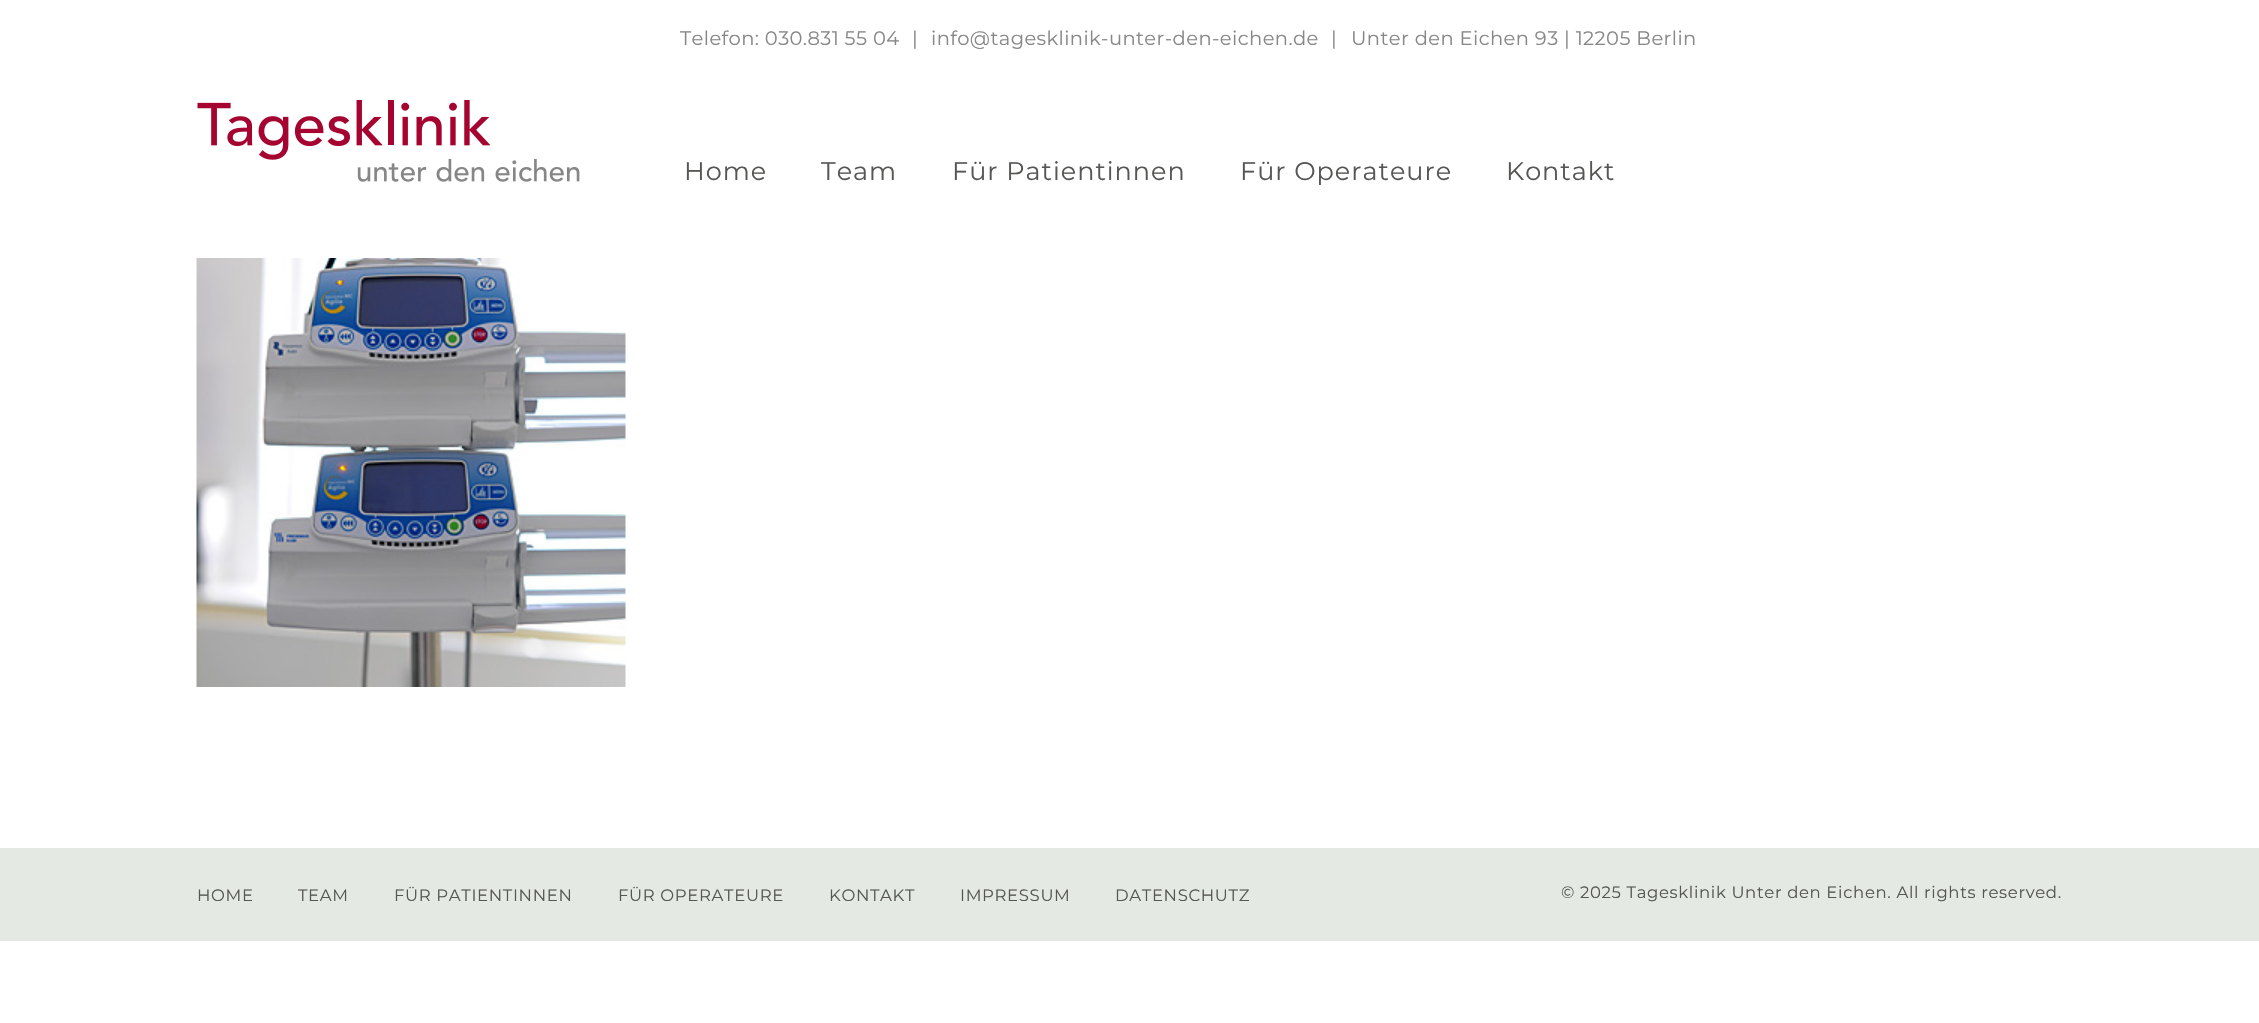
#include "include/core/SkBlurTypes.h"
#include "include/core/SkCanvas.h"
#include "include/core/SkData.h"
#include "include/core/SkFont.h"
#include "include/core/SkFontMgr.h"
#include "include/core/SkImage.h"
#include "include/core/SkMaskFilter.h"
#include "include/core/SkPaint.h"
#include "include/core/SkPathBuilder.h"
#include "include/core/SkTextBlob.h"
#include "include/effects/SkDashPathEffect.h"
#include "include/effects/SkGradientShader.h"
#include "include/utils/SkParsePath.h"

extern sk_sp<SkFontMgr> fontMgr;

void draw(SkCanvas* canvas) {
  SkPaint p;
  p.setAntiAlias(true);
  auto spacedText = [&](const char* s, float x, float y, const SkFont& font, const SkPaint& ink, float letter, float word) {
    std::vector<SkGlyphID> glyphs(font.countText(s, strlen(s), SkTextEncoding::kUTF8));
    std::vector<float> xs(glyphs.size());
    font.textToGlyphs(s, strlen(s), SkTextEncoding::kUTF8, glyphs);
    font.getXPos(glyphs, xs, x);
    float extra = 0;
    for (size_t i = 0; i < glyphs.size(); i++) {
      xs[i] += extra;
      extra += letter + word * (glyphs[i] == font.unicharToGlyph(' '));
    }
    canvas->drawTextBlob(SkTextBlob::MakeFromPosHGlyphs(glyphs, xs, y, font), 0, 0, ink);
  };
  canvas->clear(SK_ColorWHITE);
  canvas->drawImageRect(SkImages::DeferredFromEncodedData(SkData::MakeFromFileName("images/1.png")), SkRect::MakeLTRB(197, 100, 580, 182), SkSamplingOptions());
  canvas->drawImageRect(SkImages::DeferredFromEncodedData(SkData::MakeFromFileName("images/2.png")), SkRect::MakeLTRB(196, 258, 626, 687), SkSamplingOptions());
  p.setColor(SkColorSetRGB(228, 234, 227));
  canvas->drawRect(SkRect::MakeLTRB(0, 848, 2259, 941), p);
  SkFont font1(fontMgr->matchFamilyStyle("Montserrat", SkFontStyle::Normal()), 19.5f);
  font1.setSubpixel(true);
  p.setColor(SkColorSetRGB(134, 135, 134));
  spacedText("Telefon: 030.831 55 04", 680, 45, font1, p, 0.4f, 0);
  spacedText("|", 912, 45, font1, p, 0.4f, 0);
  spacedText("info@tagesklinik-unter-den-eichen.de", 931, 45, font1, p, 0.4f, 0);
  spacedText("|", 1331, 45, font1, p, 0.4f, 0);
  spacedText("Unter den Eichen 93 | 12205 Berlin", 1351, 45, font1, p, 0.4f, 0);
  SkFont font2(fontMgr->matchFamilyStyle("Montserrat", SkFontStyle::Normal()), 25.5f);
  font2.setSubpixel(true);
  p.setColor(SkColorSetRGB(86, 86, 85));
  spacedText("Home", 684, 180, font2, p, 1, 0);
  spacedText("Team", 821, 180, font2, p, 1, 0);
  spacedText("Für Patientinnen", 952, 180, font2, p, 1, 0);
  spacedText("Für Operateure", 1240, 180, font2, p, 1, 0);
  spacedText("Kontakt", 1506, 180, font2, p, 1, 0);
  SkFont font3(fontMgr->matchFamilyStyle("Montserrat", SkFontStyle::Normal()), 16.5f);
  font3.setSubpixel(true);
  spacedText("HOME", 197, 901, font3, p, 0.65f, 0);
  spacedText("TEAM", 298, 901, font3, p, 0.65f, 0);
  spacedText("FÜR PATIENTINNEN", 394, 901, font3, p, 0.65f, 0);
  spacedText("FÜR OPERATEURE", 618, 901, font3, p, 0.65f, 0);
  spacedText("KONTAKT", 829, 901, font3, p, 0.65f, 0);
  spacedText("IMPRESSUM", 960, 901, font3, p, 0.65f, 0);
  spacedText("DATENSCHUTZ", 1115, 901, font3, p, 0.65f, 0);
  spacedText("© 2025 Tagesklinik Unter den Eichen. All rights reserved.", 1561, 898, font3, p, 0.65f, 0);
}
